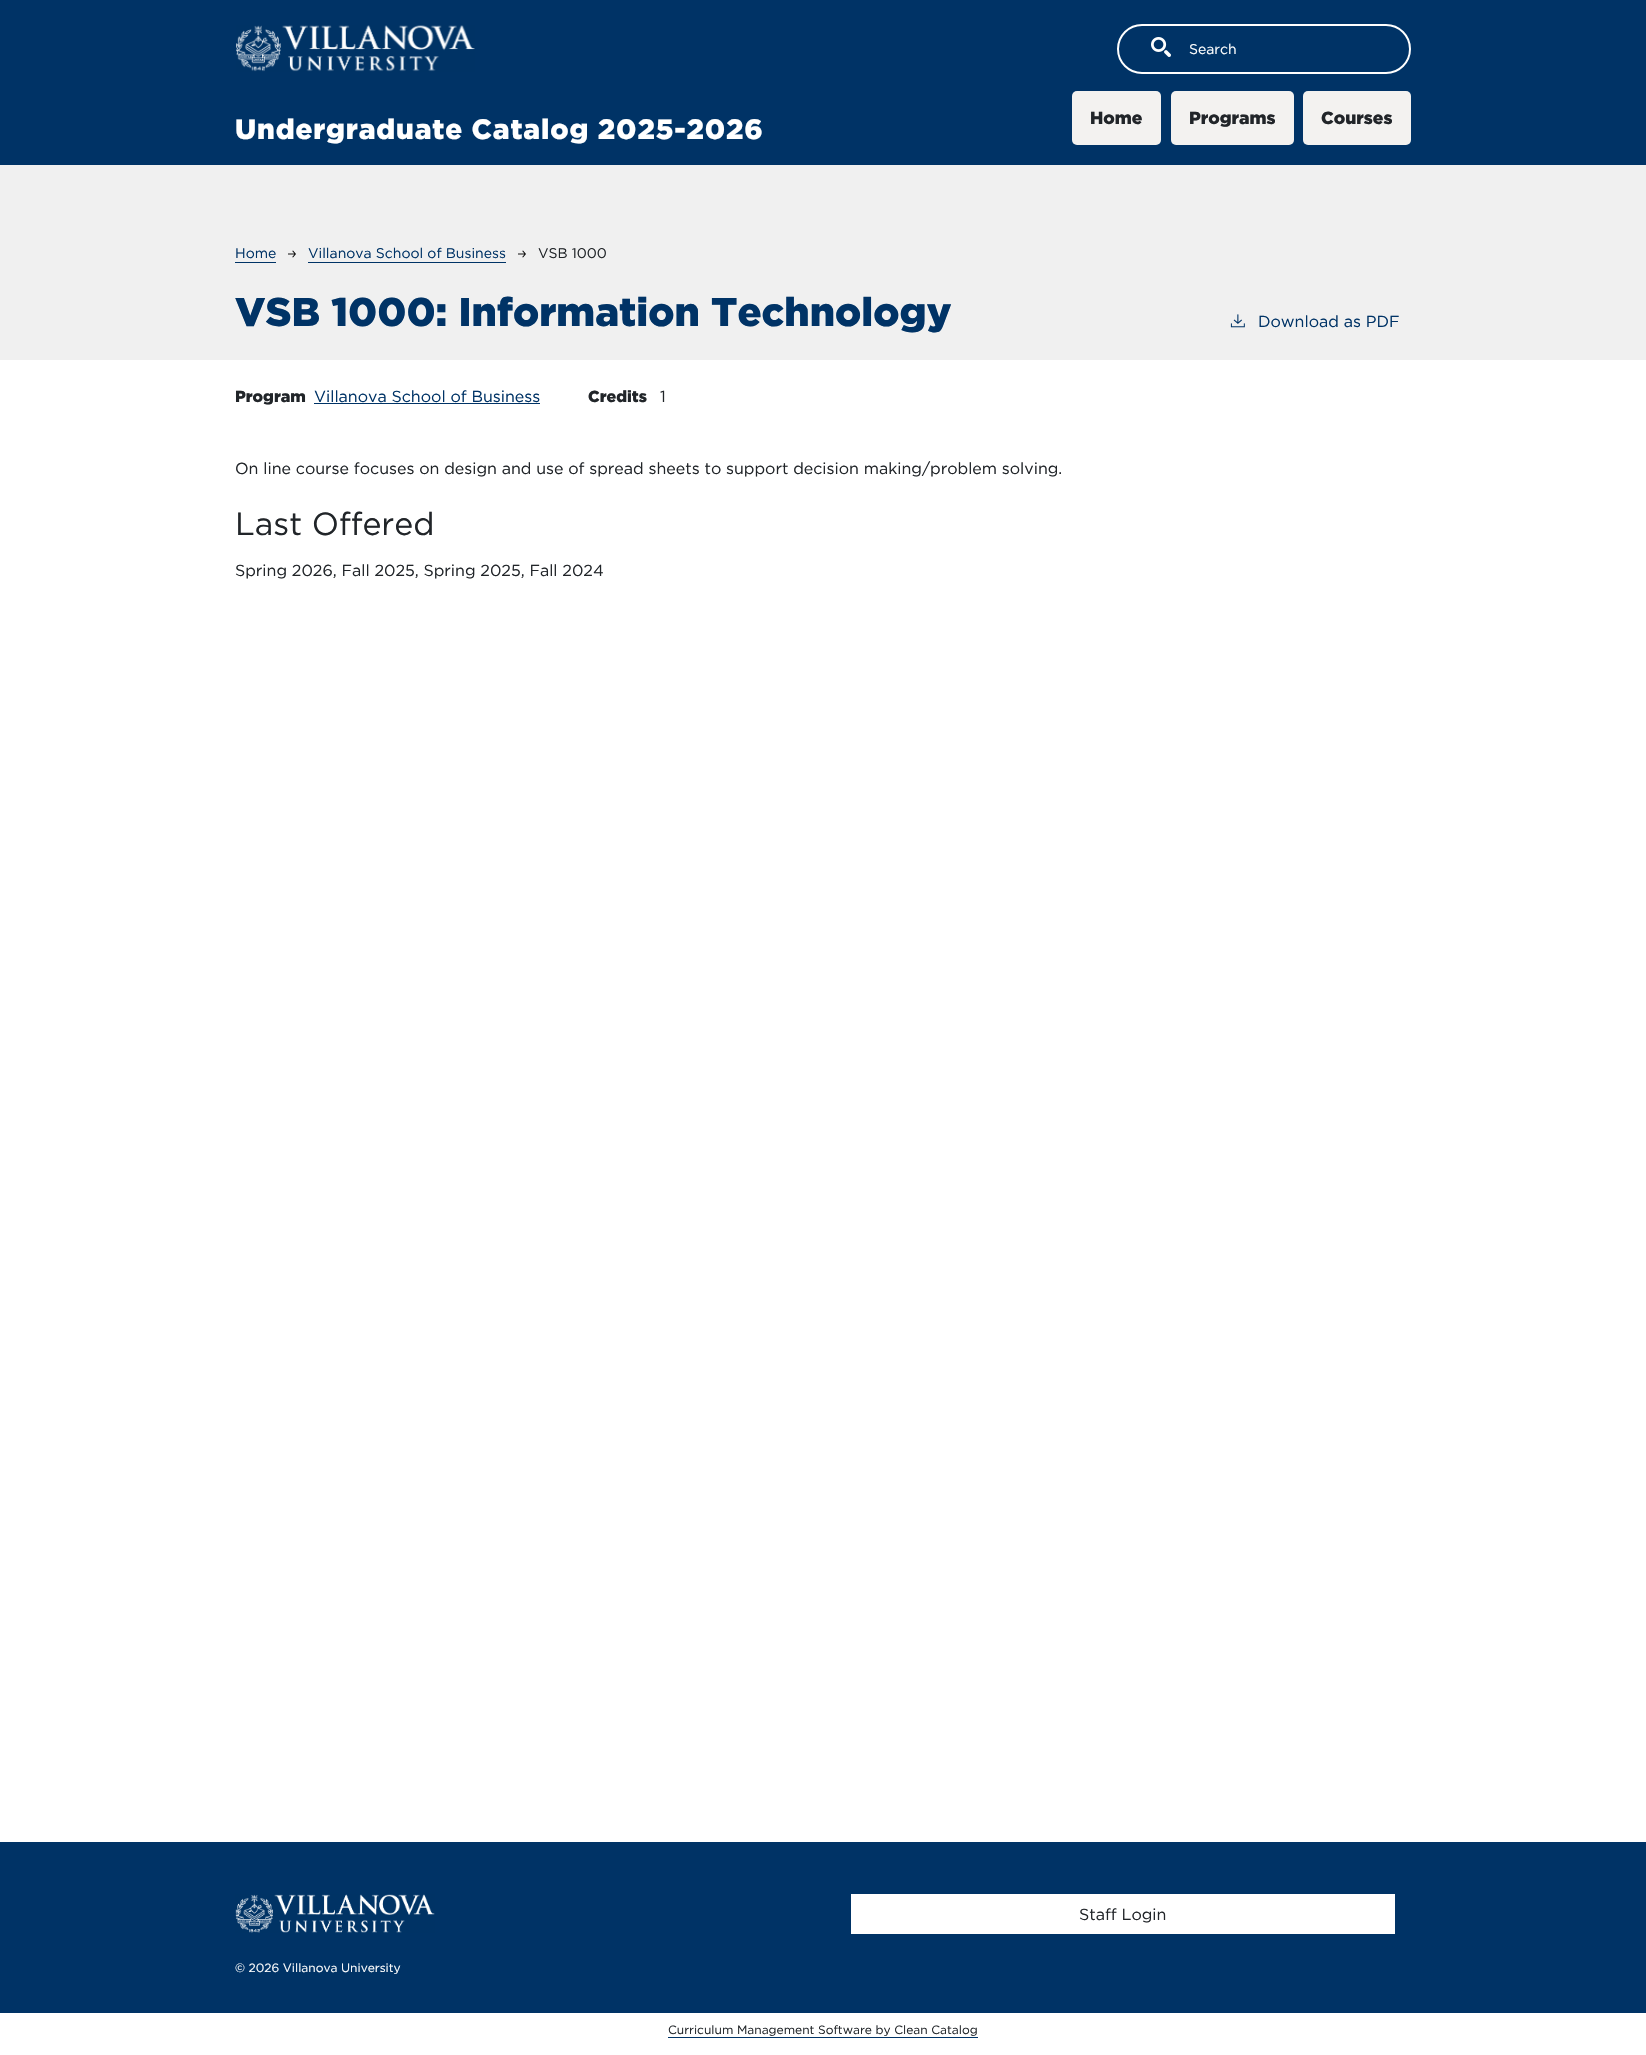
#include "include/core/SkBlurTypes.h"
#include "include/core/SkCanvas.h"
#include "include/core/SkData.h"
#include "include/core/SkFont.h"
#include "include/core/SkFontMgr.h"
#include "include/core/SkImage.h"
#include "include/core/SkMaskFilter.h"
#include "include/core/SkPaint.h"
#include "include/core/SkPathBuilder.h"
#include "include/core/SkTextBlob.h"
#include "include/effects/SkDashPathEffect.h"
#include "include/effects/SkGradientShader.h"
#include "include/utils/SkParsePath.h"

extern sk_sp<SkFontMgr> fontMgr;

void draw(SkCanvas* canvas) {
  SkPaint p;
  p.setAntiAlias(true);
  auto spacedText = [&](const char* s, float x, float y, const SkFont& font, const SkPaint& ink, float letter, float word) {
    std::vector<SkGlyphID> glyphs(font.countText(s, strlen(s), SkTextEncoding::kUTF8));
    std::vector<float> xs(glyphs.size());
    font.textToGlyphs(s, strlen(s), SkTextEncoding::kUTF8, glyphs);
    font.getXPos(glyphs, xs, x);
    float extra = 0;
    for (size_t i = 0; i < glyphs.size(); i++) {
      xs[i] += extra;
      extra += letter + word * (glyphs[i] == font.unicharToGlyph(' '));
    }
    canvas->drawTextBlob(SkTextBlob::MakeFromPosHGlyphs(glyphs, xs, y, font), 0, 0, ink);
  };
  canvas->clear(SK_ColorWHITE);
  p.setColor(SkColorSetRGB(0, 51, 102));
  canvas->drawRect(SkRect::MakeLTRB(0, 0, 1646, 165), p);
  p.setStyle(SkPaint::kStroke_Style);
  p.setStrokeWidth(2);
  p.setColor(SK_ColorWHITE);
  canvas->drawRoundRect(SkRect::MakeLTRB(1118, 25, 1410, 73), 24, 24, p);
  canvas->drawImageRect(SkImages::DeferredFromEncodedData(SkData::MakeFromFileName("images/1.png")), SkRect::MakeLTRB(1151, 37, 1171, 57), SkSamplingOptions());
  p.setStyle(SkPaint::kFill_Style);
  p.setColor(SkColorSetRGB(243, 242, 240));
  canvas->drawRoundRect(SkRect::MakeLTRB(1072, 91, 1161, 145), 5, 5, p);
  canvas->drawRoundRect(SkRect::MakeLTRB(1171, 91, 1294, 145), 5, 5, p);
  canvas->drawRoundRect(SkRect::MakeLTRB(1303, 91, 1411, 145), 5, 5, p);
  canvas->drawImageRect(SkImages::DeferredFromEncodedData(SkData::MakeFromFileName("images/2.png")), SkRect::MakeLTRB(236, 25, 475, 72), SkSamplingOptions());
  p.setColor(SkColorSetRGB(240, 240, 240));
  canvas->drawRect(SkRect::MakeLTRB(0, 165, 1646, 360), p);
  p.setColor(SkColorSetRGB(0, 51, 102));
  canvas->drawRect(SkRect::MakeLTRB(235, 262, 276, 263), p);
  canvas->drawImageRect(SkImages::DeferredFromEncodedData(SkData::MakeFromFileName("images/3.png")), SkRect::MakeLTRB(288, 250, 296, 258), SkSamplingOptions());
  canvas->drawRect(SkRect::MakeLTRB(308, 262, 506, 263), p);
  canvas->drawImageRect(SkImages::DeferredFromEncodedData(SkData::MakeFromFileName("images/3.png")), SkRect::MakeLTRB(518, 250, 526, 258), SkSamplingOptions());
  canvas->drawImageRect(SkImages::DeferredFromEncodedData(SkData::MakeFromFileName("images/4.png")), SkRect::MakeLTRB(1230, 314, 1245, 328), SkSamplingOptions());
  canvas->drawRect(SkRect::MakeLTRB(314, 403, 540, 404), p);
  canvas->drawRect(SkRect::MakeLTRB(0, 1842, 1646, 2013), p);
  canvas->drawImageRect(SkImages::DeferredFromEncodedData(SkData::MakeFromFileName("images/5.png")), SkRect::MakeLTRB(235, 1894, 435, 1933), SkSamplingOptions());
  p.setColor(SK_ColorWHITE);
  canvas->drawRect(SkRect::MakeLTRB(851, 1894, 1395, 1934), p);
  p.setColor(SkColorSetRGB(0, 51, 102));
  canvas->drawRect(SkRect::MakeLTRB(668, 2037, 978, 2038), p);
  SkFont font1(fontMgr->matchFamilyStyle("Gotham", SkFontStyle::Normal()), 14);
  font1.setSubpixel(true);
  p.setColor(SK_ColorWHITE);
  canvas->drawString("Search", 1189, 54, font1, p);
  SkFont font2(fontMgr->matchFamilyStyle("Gotham", SkFontStyle(900, SkFontStyle::kNormal_Width, SkFontStyle::kUpright_Slant)), 17.5f);
  font2.setSubpixel(true);
  p.setColor(SkColorSetRGB(33, 37, 41));
  canvas->drawString("Home", 1090, 124, font2, p);
  canvas->drawString("Programs", 1189, 124, font2, p);
  canvas->drawString("Courses", 1321, 124, font2, p);
  SkFont font3(fontMgr->matchFamilyStyle("Gotham", SkFontStyle(900, SkFontStyle::kNormal_Width, SkFontStyle::kUpright_Slant)), 28);
  font3.setSubpixel(true);
  p.setColor(SK_ColorWHITE);
  spacedText("Undergraduate Catalog 2025-2026", 235, 139, font3, p, 0.85f, 0);
  p.setColor(SkColorSetRGB(0, 51, 102));
  canvas->drawString("Home", 235, 258, font1, p);
  canvas->drawString("Villanova School of Business", 308, 258, font1, p);
  p.setColor(SkColorSetRGB(33, 37, 41));
  canvas->drawString("VSB 1000", 538, 258, font1, p);
  SkFont font4(fontMgr->matchFamilyStyle("Gotham", SkFontStyle(900, SkFontStyle::kNormal_Width, SkFontStyle::kUpright_Slant)), 40);
  font4.setSubpixel(true);
  p.setColor(SkColorSetRGB(0, 51, 102));
  canvas->drawString("VSB 1000: Information Technology", 235, 326, font4, p);
  SkFont font5(fontMgr->matchFamilyStyle("Gotham", SkFontStyle::Normal()), 16);
  font5.setSubpixel(true);
  canvas->drawString("Download as PDF", 1258, 327, font5, p);
  SkFont font6(fontMgr->matchFamilyStyle("Gotham", SkFontStyle(900, SkFontStyle::kNormal_Width, SkFontStyle::kUpright_Slant)), 16);
  font6.setSubpixel(true);
  p.setColor(SkColorSetRGB(33, 37, 41));
  canvas->drawString("Program", 235, 402, font6, p);
  p.setColor(SkColorSetRGB(0, 51, 102));
  canvas->drawString("Villanova School of Business", 314, 402, font5, p);
  p.setColor(SkColorSetRGB(33, 37, 41));
  canvas->drawString("Credits", 588, 402, font6, p);
  canvas->drawString("1", 660, 402, font5, p);
  canvas->drawString("On line course focuses on design and use of spread sheets to support decision making/problem solving.", 235, 474, font5, p);
  SkFont font7(fontMgr->matchFamilyStyle("Gotham", SkFontStyle::Normal()), 32);
  font7.setSubpixel(true);
  canvas->drawString("Last Offered", 235, 535, font7, p);
  canvas->drawString("Spring 2026, Fall 2025, Spring 2025, Fall 2024", 235, 576, font5, p);
  canvas->drawString("Staff Login", 1079, 1920, font5, p);
  SkFont font8(fontMgr->matchFamilyStyle("Gotham", SkFontStyle::Normal()), 12);
  font8.setSubpixel(true);
  p.setColor(SK_ColorWHITE);
  canvas->drawString("© 2026 Villanova University", 235, 1972, font8, p);
  p.setColor(SkColorSetRGB(33, 37, 41));
  canvas->drawString("Curriculum Management Software by Clean Catalog", 668, 2034, font8, p);
}
